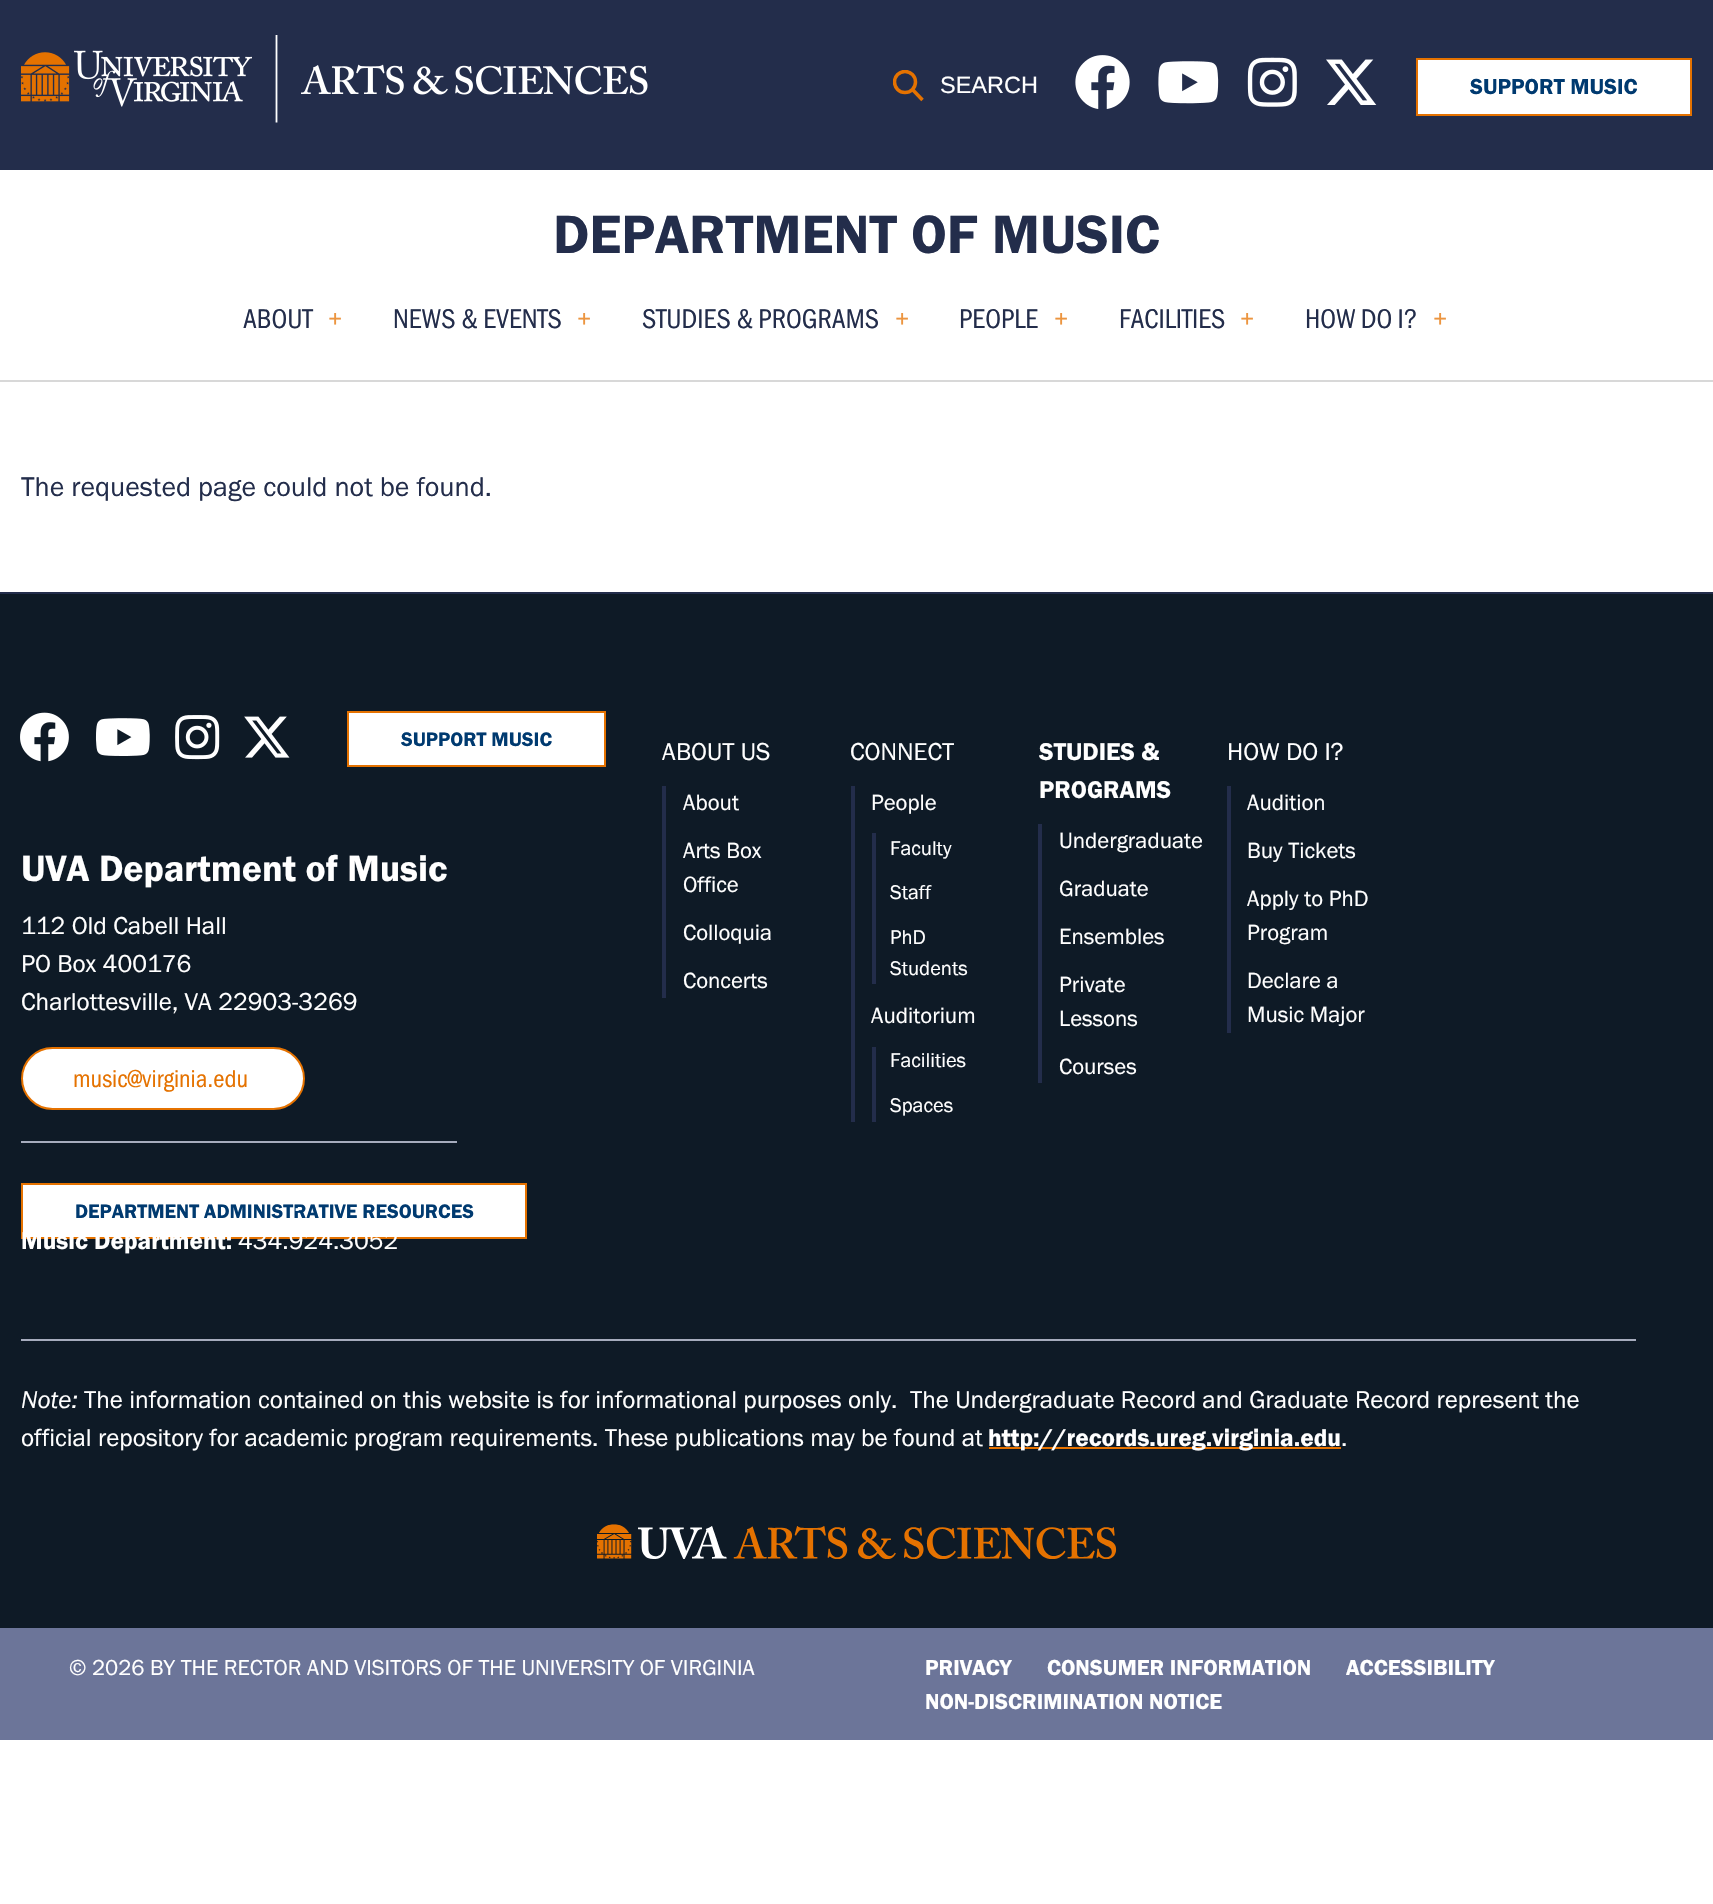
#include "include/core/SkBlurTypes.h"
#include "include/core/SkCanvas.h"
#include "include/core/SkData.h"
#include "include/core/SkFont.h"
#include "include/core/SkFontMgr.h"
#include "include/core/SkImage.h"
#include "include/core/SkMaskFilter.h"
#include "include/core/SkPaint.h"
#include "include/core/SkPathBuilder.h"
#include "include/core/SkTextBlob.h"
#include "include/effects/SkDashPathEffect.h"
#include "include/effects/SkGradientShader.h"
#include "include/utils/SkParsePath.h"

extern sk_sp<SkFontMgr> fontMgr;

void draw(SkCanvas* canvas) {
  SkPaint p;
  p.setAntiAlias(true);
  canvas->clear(SK_ColorWHITE);
  p.setColor(SkColorSetRGB(35, 45, 75));
  canvas->drawRect(SkRect::MakeLTRB(0, 0, 1713, 170), p);
  canvas->drawImageRect(SkImages::DeferredFromEncodedData(SkData::MakeFromFileName("images/1.png")), SkRect::MakeLTRB(21, 35, 648, 123), SkSamplingOptions());
  canvas->save();
  canvas->clipRect(SkRect::MakeLTRB(893, 70, 924, 102));
  p.setStyle(SkPaint::kStroke_Style);
  p.setStrokeWidth(3.5f);
  p.setColor(SkColorSetRGB(229, 114, 0));
  canvas->drawCircle(905, 82, 10.5f, p);
  canvas->restore();
  canvas->drawPath(SkPathBuilder().moveTo(922.5f, 100).lineTo(912, 89).detach(), p);
  canvas->drawImageRect(SkImages::DeferredFromEncodedData(SkData::MakeFromFileName("images/2.png")), SkRect::MakeLTRB(1075, 55, 1130, 109), SkSamplingOptions());
  canvas->drawImageRect(SkImages::DeferredFromEncodedData(SkData::MakeFromFileName("images/3.png")), SkRect::MakeLTRB(1158, 61, 1219, 104), SkSamplingOptions());
  canvas->drawImageRect(SkImages::DeferredFromEncodedData(SkData::MakeFromFileName("images/4.png")), SkRect::MakeLTRB(1247, 57, 1297, 107), SkSamplingOptions());
  canvas->drawImageRect(SkImages::DeferredFromEncodedData(SkData::MakeFromFileName("images/5.png")), SkRect::MakeLTRB(1326, 59, 1377, 105), SkSamplingOptions());
  p.setStyle(SkPaint::kFill_Style);
  p.setColor(SK_ColorWHITE);
  canvas->drawRect(SkRect::MakeLTRB(1417, 59, 1691, 115), p);
  p.setStyle(SkPaint::kStroke_Style);
  p.setStrokeWidth(2);
  p.setColor(SkColorSetRGB(229, 114, 0));
  canvas->drawRect(SkRect::MakeLTRB(1417, 59, 1691, 115), p);
  p.setStyle(SkPaint::kFill_Style);
  p.setColor(SkColorSetRGB(216, 216, 216));
  canvas->drawRect(SkRect::MakeLTRB(0, 380, 1713, 382), p);
  p.setColor(SkColorSetRGB(14, 26, 38));
  canvas->drawRect(SkRect::MakeLTRB(0, 594, 1713, 1628), p);
  p.setColor(SkColorSetRGB(35, 45, 75));
  canvas->drawRect(SkRect::MakeLTRB(0, 592, 1713, 594), p);
  canvas->drawImageRect(SkImages::DeferredFromEncodedData(SkData::MakeFromFileName("images/6.png")), SkRect::MakeLTRB(20, 712, 69, 762), SkSamplingOptions());
  canvas->drawImageRect(SkImages::DeferredFromEncodedData(SkData::MakeFromFileName("images/7.png")), SkRect::MakeLTRB(95, 718, 150, 756), SkSamplingOptions());
  canvas->drawImageRect(SkImages::DeferredFromEncodedData(SkData::MakeFromFileName("images/8.png")), SkRect::MakeLTRB(175, 715, 220, 760), SkSamplingOptions());
  canvas->drawImageRect(SkImages::DeferredFromEncodedData(SkData::MakeFromFileName("images/9.png")), SkRect::MakeLTRB(244, 716, 290, 758), SkSamplingOptions());
  p.setColor(SK_ColorWHITE);
  canvas->drawRect(SkRect::MakeLTRB(348, 712, 605, 766), p);
  p.setStyle(SkPaint::kStroke_Style);
  p.setColor(SkColorSetRGB(229, 114, 0));
  canvas->drawRect(SkRect::MakeLTRB(348, 712, 605, 766), p);
  p.setStyle(SkPaint::kFill_Style);
  p.setColor(SK_ColorWHITE);
  canvas->drawRoundRect(SkRect::MakeLTRB(22, 1048, 304, 1109), 30.5f, 30.5f, p);
  p.setStyle(SkPaint::kStroke_Style);
  p.setColor(SkColorSetRGB(229, 114, 0));
  canvas->drawRoundRect(SkRect::MakeLTRB(22, 1048, 304, 1109), 30.5f, 30.5f, p);
  p.setStyle(SkPaint::kFill_Style);
  p.setColor(SkColorSetRGB(166, 172, 189));
  canvas->drawRect(SkRect::MakeLTRB(21, 1141, 457, 1143), p);
  p.setColor(SkColorSetRGB(35, 45, 75));
  canvas->drawRect(SkRect::MakeLTRB(662, 786, 666, 998), p);
  canvas->drawRect(SkRect::MakeLTRB(851, 786, 855, 1122), p);
  canvas->drawRect(SkRect::MakeLTRB(872, 833, 876, 984), p);
  canvas->drawRect(SkRect::MakeLTRB(872, 1047, 876, 1122), p);
  canvas->drawRect(SkRect::MakeLTRB(1038, 824, 1042, 1083), p);
  canvas->drawRect(SkRect::MakeLTRB(1227, 786, 1231, 1033), p);
  p.setColor(SK_ColorWHITE);
  canvas->drawRect(SkRect::MakeLTRB(22, 1184, 526, 1238), p);
  p.setStyle(SkPaint::kStroke_Style);
  p.setColor(SkColorSetRGB(229, 114, 0));
  canvas->drawRect(SkRect::MakeLTRB(22, 1184, 526, 1238), p);
  p.setStyle(SkPaint::kFill_Style);
  p.setColor(SkColorSetRGB(166, 172, 189));
  canvas->drawRect(SkRect::MakeLTRB(21, 1339, 1636, 1341), p);
  p.setColor(SkColorSetRGB(229, 114, 0));
  canvas->drawRect(SkRect::MakeLTRB(989, 1447, 1341, 1449), p);
  canvas->drawImageRect(SkImages::DeferredFromEncodedData(SkData::MakeFromFileName("images/10.png")), SkRect::MakeLTRB(597, 1524, 1117, 1559), SkSamplingOptions());
  p.setColor(SkColorSetRGB(108, 117, 153));
  canvas->drawRect(SkRect::MakeLTRB(0, 1628, 1713, 1740), p);
  SkFont font1(fontMgr->matchFamilyStyle("Liberation Sans", SkFontStyle::Normal()), 23.5f);
  font1.setSubpixel(true);
  p.setColor(SK_ColorWHITE);
  canvas->drawString("SEARCH", 940, 93, font1, p);
  SkFont font2(fontMgr->matchFamilyStyle("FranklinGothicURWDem", SkFontStyle::Normal()), 22.4f);
  font2.setSubpixel(true);
  p.setColor(SkColorSetRGB(0, 58, 112));
  canvas->drawString("SUPPORT MUSIC", 1470, 94, font2, p);
  SkFont font3(fontMgr->matchFamilyStyle("FranklinGothicURWDem", SkFontStyle::Normal()), 56);
  font3.setSubpixel(true);
  p.setColor(SkColorSetRGB(35, 45, 75));
  canvas->drawString("DEPARTMENT OF MUSIC", 553, 253, font3, p);
  SkFont font4(fontMgr->matchFamilyStyle("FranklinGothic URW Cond", SkFontStyle::Normal()), 28);
  font4.setSubpixel(true);
  canvas->drawString("ABOUT", 243, 328, font4, p);
  p.setColor(SkColorSetRGB(236, 149, 64));
  canvas->drawString("+", 328, 328, font4, p);
  p.setColor(SkColorSetRGB(35, 45, 75));
  canvas->drawString("NEWS & EVENTS", 393, 328, font4, p);
  p.setColor(SkColorSetRGB(236, 149, 64));
  canvas->drawString("+", 577, 328, font4, p);
  p.setColor(SkColorSetRGB(35, 45, 75));
  canvas->drawString("STUDIES & PROGRAMS", 642, 328, font4, p);
  p.setColor(SkColorSetRGB(236, 149, 64));
  canvas->drawString("+", 895, 328, font4, p);
  p.setColor(SkColorSetRGB(35, 45, 75));
  canvas->drawString("PEOPLE", 959, 328, font4, p);
  p.setColor(SkColorSetRGB(236, 149, 64));
  canvas->drawString("+", 1054, 328, font4, p);
  p.setColor(SkColorSetRGB(35, 45, 75));
  canvas->drawString("FACILITIES", 1119, 328, font4, p);
  p.setColor(SkColorSetRGB(236, 149, 64));
  canvas->drawString("+", 1240, 328, font4, p);
  p.setColor(SkColorSetRGB(35, 45, 75));
  canvas->drawString("HOW DO I?", 1305, 328, font4, p);
  p.setColor(SkColorSetRGB(236, 149, 64));
  canvas->drawString("+", 1433, 328, font4, p);
  SkFont font5(fontMgr->matchFamilyStyle("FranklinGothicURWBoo", SkFontStyle::Normal()), 28);
  font5.setSubpixel(true);
  p.setColor(SkColorSetRGB(35, 45, 75));
  canvas->drawString("The requested page could not be found.", 21, 496, font5, p);
  SkFont font6(fontMgr->matchFamilyStyle("FranklinGothicURWDem", SkFontStyle::Normal()), 20.2f);
  font6.setSubpixel(true);
  p.setColor(SkColorSetRGB(0, 58, 112));
  canvas->drawString("SUPPORT MUSIC", 401, 746, font6, p);
  SkFont font7(fontMgr->matchFamilyStyle("FranklinGothicURWDem", SkFontStyle::Normal()), 37.75f);
  font7.setSubpixel(true);
  p.setColor(SK_ColorWHITE);
  canvas->drawString("UVA Department of Music", 21, 881, font7, p);
  SkFont font8(fontMgr->matchFamilyStyle("FranklinGothicURWBoo", SkFontStyle::Normal()), 25.2f);
  font8.setSubpixel(true);
  canvas->drawString("112 Old Cabell Hall", 21, 934, font8, p);
  canvas->drawString("PO Box 400176", 21, 972, font8, p);
  canvas->drawString("Charlottesville, VA 22903-3269", 21, 1010, font8, p);
  SkFont font9(fontMgr->matchFamilyStyle("FranklinGothic URW Cond", SkFontStyle::Normal()), 25.2f);
  font9.setSubpixel(true);
  p.setColor(SkColorSetRGB(229, 114, 0));
  canvas->drawString("music@virginia.edu", 73, 1087, font9, p);
  SkFont font10(fontMgr->matchFamilyStyle("FranklinGothicURWDem", SkFontStyle::Normal()), 25.2f);
  font10.setSubpixel(true);
  p.setColor(SK_ColorWHITE);
  canvas->drawString("Music Department:", 21, 1249, font10, p);
  canvas->drawString("434.924.3052", 238, 1249, font8, p);
  canvas->drawString("ABOUT US", 662, 760, font8, p);
  SkFont font11(fontMgr->matchFamilyStyle("FranklinGothicURWBoo", SkFontStyle::Normal()), 22.75f);
  font11.setSubpixel(true);
  canvas->drawString("About", 683, 810, font11, p);
  canvas->drawString("Arts Box", 683, 858, font11, p);
  canvas->drawString("Office", 683, 892, font11, p);
  canvas->drawString("Colloquia", 683, 940, font11, p);
  canvas->drawString("Concerts", 683, 988, font11, p);
  canvas->drawString("CONNECT", 850, 760, font8, p);
  canvas->drawString("People", 871, 810, font11, p);
  SkFont font12(fontMgr->matchFamilyStyle("FranklinGothicURWBoo", SkFontStyle::Normal()), 20.5f);
  font12.setSubpixel(true);
  canvas->drawString("Faculty", 890, 855, font12, p);
  canvas->drawString("Staff", 890, 899, font12, p);
  canvas->drawString("PhD", 890, 944, font12, p);
  canvas->drawString("Students", 890, 975, font12, p);
  canvas->drawString("Auditorium", 871, 1023, font11, p);
  canvas->drawString("Facilities", 890, 1067, font12, p);
  canvas->drawString("Spaces", 890, 1112, font12, p);
  canvas->drawString("STUDIES &", 1039, 760, font10, p);
  canvas->drawString("PROGRAMS", 1039, 798, font10, p);
  canvas->drawString("Undergraduate", 1059, 848, font11, p);
  canvas->drawString("Graduate", 1059, 896, font11, p);
  canvas->drawString("Ensembles", 1059, 944, font11, p);
  canvas->drawString("Private", 1059, 992, font11, p);
  canvas->drawString("Lessons", 1059, 1026, font11, p);
  canvas->drawString("Courses", 1059, 1074, font11, p);
  canvas->drawString("HOW DO I?", 1227, 760, font8, p);
  canvas->drawString("Audition", 1247, 810, font11, p);
  canvas->drawString("Buy Tickets", 1247, 858, font11, p);
  canvas->drawString("Apply to PhD", 1247, 906, font11, p);
  canvas->drawString("Program", 1247, 940, font11, p);
  canvas->drawString("Declare a", 1247, 988, font11, p);
  canvas->drawString("Music Major", 1247, 1022, font11, p);
  p.setColor(SkColorSetRGB(0, 58, 112));
  canvas->drawString("DEPARTMENT ADMINISTRATIVE RESOURCES", 75, 1218, font6, p);
  p.setColor(SK_ColorWHITE);
  canvas->drawString(".", 294, 1211, font8, p);
  SkFont font13(fontMgr->matchFamilyStyle("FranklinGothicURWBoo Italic", SkFontStyle::Italic()), 25.2f);
  font13.setSubpixel(true);
  canvas->drawString("Note:", 21, 1408, font13, p);
  canvas->drawString("The information contained on this website is for informational purposes only.  The Undergraduate Record and Graduate Record represent the", 84, 1408, font8, p);
  canvas->drawString("official repository for academic program requirements. These publications may be found at", 21, 1446, font8, p);
  canvas->drawString("http://records.ureg.virginia.edu", 988, 1446, font10, p);
  canvas->drawString(".", 1341, 1446, font8, p);
  SkFont font14(fontMgr->matchFamilyStyle("FranklinGothicURWBoo", SkFontStyle::Normal()), 22.4f);
  font14.setSubpixel(true);
  canvas->drawString("© 2026 BY THE RECTOR AND VISITORS OF THE UNIVERSITY OF VIRGINIA", 69, 1675, font14, p);
  canvas->drawString("PRIVACY", 925, 1675, font2, p);
  canvas->drawString("CONSUMER INFORMATION", 1047, 1675, font2, p);
  canvas->drawString("ACCESSIBILITY", 1346, 1675, font2, p);
  canvas->drawString("NON-DISCRIMINATION NOTICE", 925, 1709, font2, p);
}
